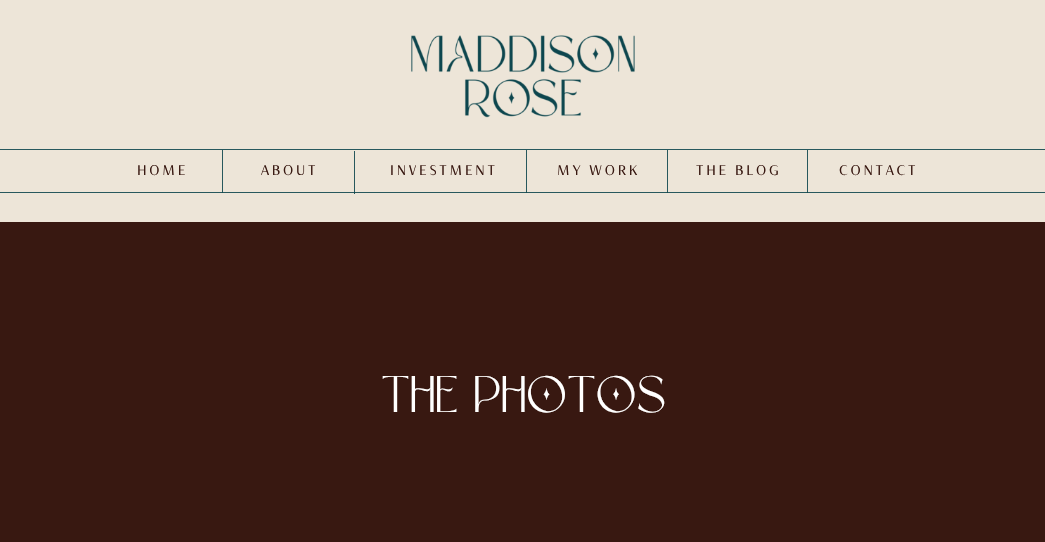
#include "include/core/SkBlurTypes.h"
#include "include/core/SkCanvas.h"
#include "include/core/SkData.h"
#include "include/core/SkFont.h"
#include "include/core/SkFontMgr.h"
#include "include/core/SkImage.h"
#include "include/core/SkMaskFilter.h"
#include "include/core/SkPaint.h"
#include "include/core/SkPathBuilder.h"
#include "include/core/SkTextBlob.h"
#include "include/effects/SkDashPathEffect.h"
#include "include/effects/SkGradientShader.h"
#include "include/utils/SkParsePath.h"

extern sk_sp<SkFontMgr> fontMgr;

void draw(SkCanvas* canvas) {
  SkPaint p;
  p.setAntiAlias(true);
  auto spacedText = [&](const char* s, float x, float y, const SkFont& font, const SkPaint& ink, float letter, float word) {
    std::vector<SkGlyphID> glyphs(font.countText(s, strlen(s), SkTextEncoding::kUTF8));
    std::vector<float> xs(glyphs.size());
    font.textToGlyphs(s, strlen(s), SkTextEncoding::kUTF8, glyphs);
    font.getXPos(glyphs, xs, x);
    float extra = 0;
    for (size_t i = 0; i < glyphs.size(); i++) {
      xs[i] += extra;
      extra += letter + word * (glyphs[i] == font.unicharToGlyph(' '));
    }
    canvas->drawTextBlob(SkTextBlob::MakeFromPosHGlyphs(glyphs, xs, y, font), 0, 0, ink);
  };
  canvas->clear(SkColorSetRGB(237, 229, 216));
  p.setColor(SkColorSetRGB(40, 88, 93));
  canvas->drawRect(SkRect::MakeLTRB(667, 150, 668, 193), p);
  canvas->drawRect(SkRect::MakeLTRB(222, 150, 223, 193), p);
  canvas->drawRect(SkRect::MakeLTRB(354, 151, 355, 194), p);
  canvas->drawRect(SkRect::MakeLTRB(526, 150, 527, 193), p);
  canvas->drawRect(SkRect::MakeLTRB(807, 150, 808, 193), p);
  canvas->drawImageRect(SkImages::DeferredFromEncodedData(SkData::MakeFromFileName("images/1.png")), SkRect::MakeLTRB(411, 35, 635, 118), SkSamplingOptions());
  canvas->drawRect(SkRect::MakeLTRB(0, 149, 1045, 150), p);
  canvas->drawRect(SkRect::MakeLTRB(0, 192, 1045, 193), p);
  p.setColor(SkColorSetRGB(20, 74, 80));
  canvas->drawRect(SkRect::MakeLTRB(222, 192, 223, 193), p);
  canvas->drawRect(SkRect::MakeLTRB(354, 192, 355, 193), p);
  canvas->drawRect(SkRect::MakeLTRB(526, 192, 527, 193), p);
  canvas->drawRect(SkRect::MakeLTRB(667, 192, 668, 193), p);
  canvas->drawRect(SkRect::MakeLTRB(807, 192, 808, 193), p);
  p.setColor(SkColorSetRGB(56, 24, 17));
  canvas->drawRect(SkRect::MakeLTRB(0, 222, 1045, 542), p);
  SkFont font1(fontMgr->matchFamilyStyle("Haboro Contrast", SkFontStyle(500, SkFontStyle::kNormal_Width, SkFontStyle::kUpright_Slant)), 14);
  font1.setSubpixel(true);
  spacedText("HOME", 137, 175, font1, p, 2.75f, 0);
  spacedText("ABOUT", 261, 175, font1, p, 2.75f, 0);
  spacedText("INVESTMENT", 390, 175, font1, p, 2.75f, 0);
  spacedText("MY WORK", 557, 175, font1, p, 2.75f, 0);
  spacedText("THE BLOG", 696, 175, font1, p, 2.75f, 0);
  spacedText("CONTACT", 839, 175, font1, p, 2.75f, 0);
  SkFont font2(fontMgr->matchFamilyStyle("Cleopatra", SkFontStyle::Normal()), 51.5f);
  font2.setSubpixel(true);
  p.setColor(SK_ColorWHITE);
  canvas->drawString("THE PHOTOS", 381, 412, font2, p);
}
